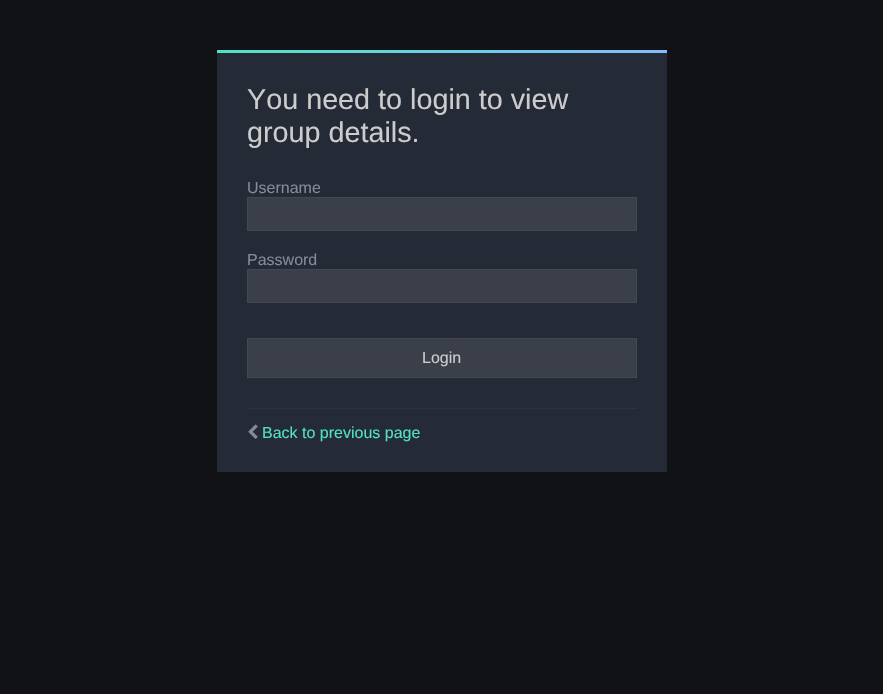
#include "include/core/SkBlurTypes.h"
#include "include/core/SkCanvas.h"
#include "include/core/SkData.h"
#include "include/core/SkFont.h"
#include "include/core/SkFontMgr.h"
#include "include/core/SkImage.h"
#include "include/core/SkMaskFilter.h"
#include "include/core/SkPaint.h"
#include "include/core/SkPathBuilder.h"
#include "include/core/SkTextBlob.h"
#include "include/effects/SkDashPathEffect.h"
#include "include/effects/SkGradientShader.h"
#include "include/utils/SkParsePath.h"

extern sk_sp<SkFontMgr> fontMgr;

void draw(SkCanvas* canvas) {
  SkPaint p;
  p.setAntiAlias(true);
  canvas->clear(SkColorSetRGB(16, 18, 22));
  p.setColor(SkColorSetRGB(36, 42, 54));
  canvas->drawRect(SkRect::MakeLTRB(217, 53, 667, 472), p);
  {
    const SkColor colors[] = {SkColorSetRGB(81, 226, 195), SkColorSetRGB(131, 188, 253)};
    const float stops[] = {0, 1};
    const SkPoint ends[] = {{217, 52}, {667, 51}};
    p.setShader(SkGradientShader::MakeLinear(ends, colors, stops, 2, SkTileMode::kClamp));
    p.setAlpha(255);
  }
  canvas->drawRect(SkRect::MakeLTRB(217, 50, 667, 53), p);
  p.setShader(nullptr);
  p.setColor(SkColorSetRGB(58, 63, 74));
  canvas->drawRect(SkRect::MakeLTRB(247.5f, 197.5f, 636.5f, 230.5f), p);
  p.setStyle(SkPaint::kStroke_Style);
  p.setStrokeWidth(1);
  p.setColor(SkColorSetRGB(66, 71, 81));
  canvas->drawRect(SkRect::MakeLTRB(247.5f, 197.5f, 636.5f, 230.5f), p);
  p.setStyle(SkPaint::kFill_Style);
  p.setColor(SkColorSetRGB(58, 63, 74));
  canvas->drawRect(SkRect::MakeLTRB(247.5f, 269.5f, 636.5f, 302.5f), p);
  p.setStyle(SkPaint::kStroke_Style);
  p.setColor(SkColorSetRGB(66, 71, 81));
  canvas->drawRect(SkRect::MakeLTRB(247.5f, 269.5f, 636.5f, 302.5f), p);
  p.setStyle(SkPaint::kFill_Style);
  p.setColor(SkColorSetRGB(58, 63, 74));
  canvas->drawRect(SkRect::MakeLTRB(247.5f, 338.5f, 636.5f, 377.5f), p);
  p.setStyle(SkPaint::kStroke_Style);
  p.setColor(SkColorSetRGB(66, 71, 81));
  canvas->drawRect(SkRect::MakeLTRB(247.5f, 338.5f, 636.5f, 377.5f), p);
  p.setStyle(SkPaint::kFill_Style);
  p.setColor(SkColorSetRGB(45, 51, 62));
  canvas->drawRect(SkRect::MakeLTRB(247, 408, 637, 409), p);
  canvas->drawImageRect(SkImages::DeferredFromEncodedData(SkData::MakeFromFileName("images/1.png")), SkRect::MakeLTRB(248, 424, 258, 439), SkSamplingOptions());
  SkFont font1(fontMgr->matchFamilyStyle("Liberation Sans", SkFontStyle::Normal()), 28.75f);
  font1.setSubpixel(true);
  p.setColor(SkColorSetRGB(204, 204, 204));
  canvas->drawString("You need to login to view", 247, 109, font1, p);
  canvas->drawString("group details.", 247, 142, font1, p);
  SkFont font2(fontMgr->matchFamilyStyle("Liberation Sans", SkFontStyle::Normal()), 16);
  font2.setSubpixel(true);
  p.setColor(SkColorSetRGB(131, 139, 152));
  canvas->drawString("Username", 247, 193, font2, p);
  canvas->drawString("Password", 247, 265, font2, p);
  p.setColor(SkColorSetRGB(204, 204, 204));
  canvas->drawString("Login", 422, 363, font2, p);
  p.setColor(SkColorSetRGB(81, 226, 195));
  canvas->drawString("Back to previous page", 262, 438, font2, p);
}
